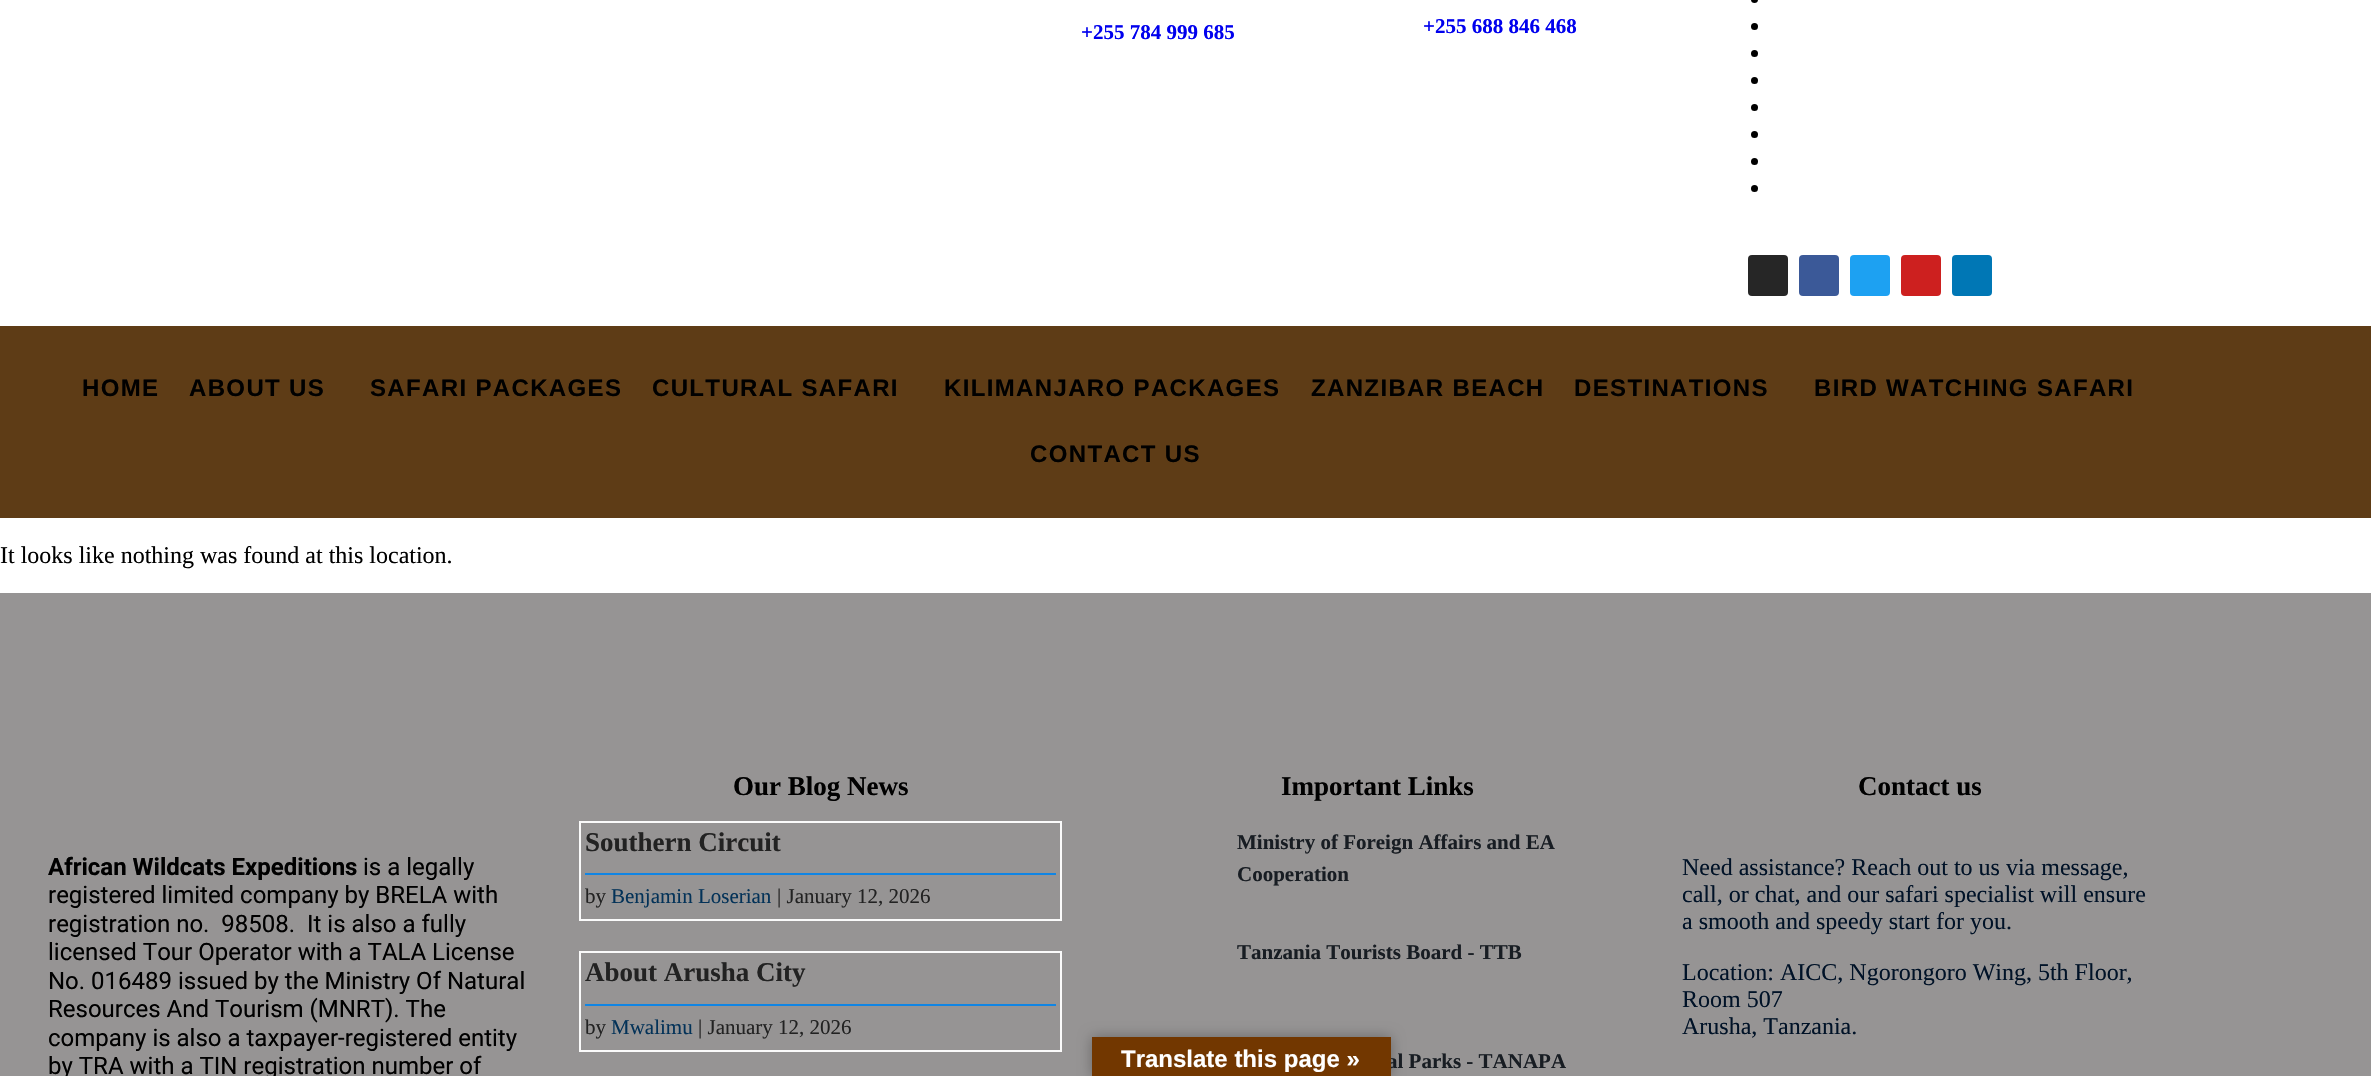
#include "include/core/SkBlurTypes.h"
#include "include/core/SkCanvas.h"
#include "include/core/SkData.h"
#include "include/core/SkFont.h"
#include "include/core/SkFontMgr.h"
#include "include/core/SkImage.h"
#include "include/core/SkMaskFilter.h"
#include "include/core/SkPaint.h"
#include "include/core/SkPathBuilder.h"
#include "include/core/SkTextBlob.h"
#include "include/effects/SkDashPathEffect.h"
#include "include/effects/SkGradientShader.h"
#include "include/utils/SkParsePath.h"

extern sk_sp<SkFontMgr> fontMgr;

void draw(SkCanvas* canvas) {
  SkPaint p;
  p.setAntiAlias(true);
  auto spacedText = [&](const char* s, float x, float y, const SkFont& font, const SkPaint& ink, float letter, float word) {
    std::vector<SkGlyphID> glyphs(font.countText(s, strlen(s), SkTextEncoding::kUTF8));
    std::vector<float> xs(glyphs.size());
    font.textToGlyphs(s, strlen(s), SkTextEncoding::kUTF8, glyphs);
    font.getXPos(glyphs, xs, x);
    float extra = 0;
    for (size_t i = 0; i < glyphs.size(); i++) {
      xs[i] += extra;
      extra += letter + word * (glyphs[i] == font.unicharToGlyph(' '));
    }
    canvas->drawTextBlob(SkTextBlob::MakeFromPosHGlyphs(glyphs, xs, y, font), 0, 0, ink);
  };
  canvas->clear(SK_ColorWHITE);
  p.setColor(SK_ColorBLACK);
  canvas->drawCircle(1754.5f, -0.5f, 3.5f, p);
  canvas->drawCircle(1754.5f, 26.5f, 3.5f, p);
  canvas->drawCircle(1754.5f, 53.5f, 3.5f, p);
  canvas->drawCircle(1754.5f, 80.5f, 3.5f, p);
  canvas->drawCircle(1754.5f, 107.5f, 3.5f, p);
  canvas->drawCircle(1754.5f, 134.5f, 3.5f, p);
  canvas->drawCircle(1754.5f, 161.5f, 3.5f, p);
  canvas->drawCircle(1754.5f, 188.5f, 3.5f, p);
  p.setColor(SkColorSetRGB(38, 38, 38));
  canvas->drawRoundRect(SkRect::MakeLTRB(1748, 255, 1788, 296), 4, 4, p);
  p.setColor(SkColorSetRGB(59, 89, 152));
  canvas->drawRoundRect(SkRect::MakeLTRB(1799, 255, 1839, 296), 4, 4, p);
  p.setColor(SkColorSetRGB(29, 161, 242));
  canvas->drawRoundRect(SkRect::MakeLTRB(1850, 255, 1890, 296), 4, 4, p);
  p.setColor(SkColorSetRGB(205, 32, 31));
  canvas->drawRoundRect(SkRect::MakeLTRB(1901, 255, 1941, 296), 4, 4, p);
  p.setColor(SkColorSetRGB(0, 119, 181));
  canvas->drawRoundRect(SkRect::MakeLTRB(1952, 255, 1992, 296), 4, 4, p);
  p.setColor(SkColorSetRGB(94, 60, 22));
  canvas->drawRect(SkRect::MakeLTRB(0, 326, 2371, 518), p);
  p.setColor(SkColorSetRGB(150, 148, 148));
  canvas->drawRect(SkRect::MakeLTRB(0, 593, 2371, 1076), p);
  p.setStyle(SkPaint::kStroke_Style);
  p.setStrokeWidth(2);
  p.setColor(SkColorSetRGB(250, 250, 250));
  canvas->drawRect(SkRect::MakeLTRB(580, 822, 1061, 920), p);
  p.setStyle(SkPaint::kFill_Style);
  p.setColor(SkColorSetRGB(16, 133, 228));
  canvas->drawRect(SkRect::MakeLTRB(585, 873, 1056, 875), p);
  p.setStyle(SkPaint::kStroke_Style);
  p.setColor(SkColorSetRGB(250, 250, 250));
  canvas->drawRect(SkRect::MakeLTRB(580, 952, 1061, 1051), p);
  p.setStyle(SkPaint::kFill_Style);
  p.setColor(SkColorSetRGB(16, 133, 228));
  canvas->drawRect(SkRect::MakeLTRB(585, 1004, 1056, 1006), p);
  p.setColor(SkColorSetARGB(77, 0, 0, 0));
  p.setMaskFilter(SkMaskFilter::MakeBlur(kNormal_SkBlurStyle, 7));
  canvas->drawRect(SkRect::MakeLTRB(1092, 1037, 1391, 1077), p);
  p.setMaskFilter(nullptr);
  SkFont font1(fontMgr->matchFamilyStyle("Liberation Serif", SkFontStyle::Bold()), 21);
  font1.setSubpixel(true);
  p.setColor(SkColorSetRGB(0, 0, 238));
  canvas->drawString("+255 784 999 685", 1081, 39, font1, p);
  canvas->drawString("+255 688 846 468", 1423, 33, font1, p);
  SkFont font2(fontMgr->matchFamilyStyle("Liberation Sans", SkFontStyle::Bold()), 24);
  font2.setSubpixel(true);
  p.setColor(SK_ColorBLACK);
  spacedText("HOME", 82, 396, font2, p, 1.35f, 0);
  spacedText("ABOUT US", 189, 396, font2, p, 1.35f, 0);
  spacedText("SAFARI PACKAGES", 370, 396, font2, p, 1.35f, 0);
  spacedText("CULTURAL SAFARI", 652, 396, font2, p, 1.35f, 0);
  spacedText("KILIMANJARO PACKAGES", 944, 396, font2, p, 1.35f, 0);
  spacedText("ZANZIBAR BEACH", 1311, 396, font2, p, 1.35f, 0);
  spacedText("DESTINATIONS", 1574, 396, font2, p, 1.35f, 0);
  spacedText("BIRD WATCHING SAFARI", 1814, 396, font2, p, 1.35f, 0);
  spacedText("CONTACT US", 1030, 462, font2, p, 1.35f, 0);
  SkFont font3(fontMgr->matchFamilyStyle("Liberation Serif", SkFontStyle::Normal()), 24);
  font3.setSubpixel(true);
  canvas->drawString("It looks like nothing was found at this location.", 0, 563, font3, p);
  SkFont font4(fontMgr->matchFamilyStyle("Roboto", SkFontStyle::Bold()), 24);
  font4.setSubpixel(true);
  canvas->drawString("African Wildcats Expeditions", 48, 875, font4, p);
  SkFont font5(fontMgr->matchFamilyStyle("Roboto", SkFontStyle::Normal()), 24);
  font5.setSubpixel(true);
  canvas->drawString("is a legally", 363, 875, font5, p);
  canvas->drawString("registered limited company by BRELA with", 48, 903, font5, p);
  canvas->drawString("registration no.  98508.  It is also a fully", 48, 932, font5, p);
  canvas->drawString("licensed Tour Operator with a TALA License", 48, 960, font5, p);
  canvas->drawString("No. 016489 issued by the Ministry Of Natural", 48, 989, font5, p);
  canvas->drawString("Resources And Tourism (MNRT). The", 48, 1017, font5, p);
  canvas->drawString("company is also a taxpayer-registered entity", 48, 1046, font5, p);
  canvas->drawString("by TRA with a TIN registration number of", 48, 1074, font5, p);
  SkFont font6(fontMgr->matchFamilyStyle("Liberation Serif", SkFontStyle::Bold()), 27);
  font6.setSubpixel(true);
  canvas->drawString("Our Blog News", 733, 795, font6, p);
  p.setColor(SkColorSetRGB(34, 34, 34));
  canvas->drawString("Southern Circuit", 585, 851, font6, p);
  SkFont font7(fontMgr->matchFamilyStyle("Liberation Serif", SkFontStyle::Normal()), 21);
  font7.setSubpixel(true);
  canvas->drawString("by", 585, 903, font7, p);
  p.setColor(SkColorSetRGB(3, 50, 88));
  canvas->drawString("Benjamin Loserian", 611, 903, font7, p);
  p.setColor(SkColorSetRGB(34, 34, 34));
  canvas->drawString("| January 12, 2026", 777, 903, font7, p);
  canvas->drawString("About Arusha City", 585, 981, font6, p);
  canvas->drawString("by", 585, 1034, font7, p);
  p.setColor(SkColorSetRGB(3, 50, 88));
  canvas->drawString("Mwalimu", 611, 1034, font7, p);
  p.setColor(SkColorSetRGB(34, 34, 34));
  canvas->drawString("| January 12, 2026", 698, 1034, font7, p);
  p.setColor(SK_ColorBLACK);
  canvas->drawString("Important Links", 1281, 795, font6, p);
  p.setColor(SkColorSetRGB(24, 29, 35));
  canvas->drawString("Ministry of Foreign Affairs and EA", 1237, 849, font1, p);
  canvas->drawString("Cooperation", 1237, 881, font1, p);
  canvas->drawString("Tanzania Tourists Board - TTB", 1237, 959, font1, p);
  canvas->drawString("al Parks - TANAPA", 1387, 1068, font1, p);
  p.setColor(SK_ColorBLACK);
  canvas->drawString("Contact us", 1858, 795, font6, p);
  p.setColor(SkColorSetRGB(0, 18, 39));
  canvas->drawString("Need assistance? Reach out to us via message,", 1682, 875, font3, p);
  canvas->drawString("call, or chat, and our safari specialist will ensure", 1682, 902, font3, p);
  canvas->drawString("a smooth and speedy start for you.", 1682, 929, font3, p);
  canvas->drawString("Location: AICC, Ngorongoro Wing, 5th Floor,", 1682, 980, font3, p);
  canvas->drawString("Room 507", 1682, 1007, font3, p);
  canvas->drawString("Arusha, Tanzania.", 1682, 1034, font3, p);
  p.setColor(SkColorSetRGB(114, 55, 0));
  canvas->drawRect(SkRect::MakeLTRB(1092, 1037, 1391, 1076), p);
  p.setColor(SK_ColorWHITE);
  canvas->drawString("Translate this page »", 1121, 1067, font2, p);
}
